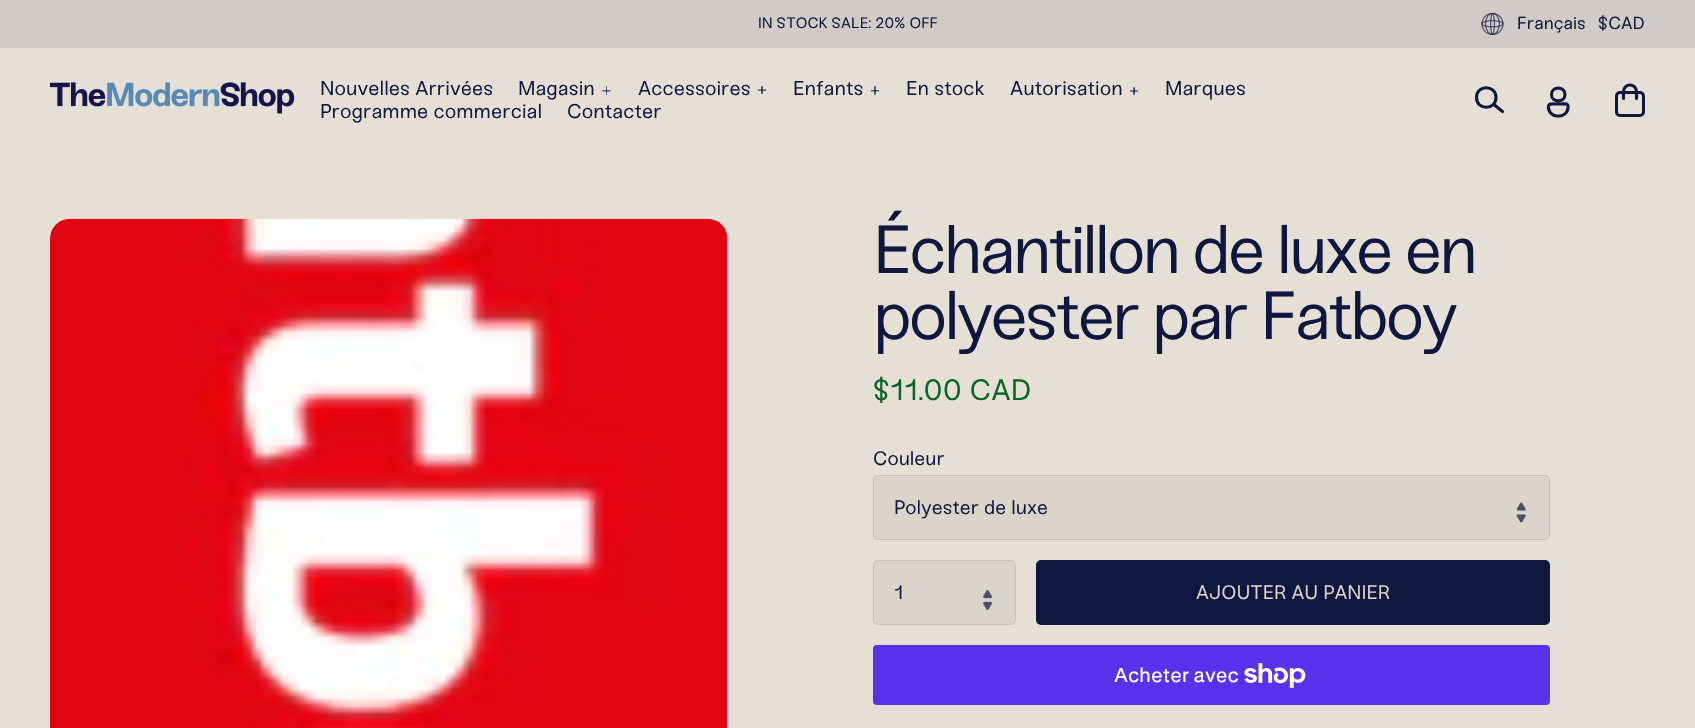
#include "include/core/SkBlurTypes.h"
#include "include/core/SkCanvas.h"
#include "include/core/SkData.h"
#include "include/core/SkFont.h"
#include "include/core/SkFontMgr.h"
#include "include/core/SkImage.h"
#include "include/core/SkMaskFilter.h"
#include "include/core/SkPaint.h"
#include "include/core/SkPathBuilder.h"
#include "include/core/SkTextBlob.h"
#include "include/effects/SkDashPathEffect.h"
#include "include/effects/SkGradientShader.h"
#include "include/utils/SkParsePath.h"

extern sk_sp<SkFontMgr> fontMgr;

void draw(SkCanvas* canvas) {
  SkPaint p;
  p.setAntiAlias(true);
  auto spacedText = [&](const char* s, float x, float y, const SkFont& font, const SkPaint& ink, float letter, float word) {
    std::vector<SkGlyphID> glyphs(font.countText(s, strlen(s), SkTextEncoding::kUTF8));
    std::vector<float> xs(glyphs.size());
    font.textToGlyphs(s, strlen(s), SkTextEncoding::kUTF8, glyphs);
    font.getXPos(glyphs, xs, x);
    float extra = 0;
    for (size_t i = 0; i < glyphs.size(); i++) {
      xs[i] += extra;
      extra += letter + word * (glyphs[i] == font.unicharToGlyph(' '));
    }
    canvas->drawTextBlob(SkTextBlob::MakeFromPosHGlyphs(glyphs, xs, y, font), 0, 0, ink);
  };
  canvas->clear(SkColorSetRGB(229, 223, 214));
  p.setColor(SkColorSetRGB(208, 203, 199));
  canvas->drawRect(SkRect::MakeLTRB(0, 0, 1695, 48), p);
  canvas->drawImageRect(SkImages::DeferredFromEncodedData(SkData::MakeFromFileName("images/1.png")), SkRect::MakeLTRB(1481, 13, 1504, 35), SkSamplingOptions());
  canvas->drawImageRect(SkImages::DeferredFromEncodedData(SkData::MakeFromFileName("images/2.png")), SkRect::MakeLTRB(50, 82, 295, 114), SkSamplingOptions());
  canvas->drawImageRect(SkImages::DeferredFromEncodedData(SkData::MakeFromFileName("images/3.png")), SkRect::MakeLTRB(602, 86, 611, 95), SkSamplingOptions());
  canvas->drawImageRect(SkImages::DeferredFromEncodedData(SkData::MakeFromFileName("images/4.png")), SkRect::MakeLTRB(757, 86, 767, 94), SkSamplingOptions());
  canvas->drawImageRect(SkImages::DeferredFromEncodedData(SkData::MakeFromFileName("images/5.png")), SkRect::MakeLTRB(870, 86, 880, 95), SkSamplingOptions());
  canvas->drawImageRect(SkImages::DeferredFromEncodedData(SkData::MakeFromFileName("images/6.png")), SkRect::MakeLTRB(1130, 87, 1139, 95), SkSamplingOptions());
  p.setStyle(SkPaint::kStroke_Style);
  p.setStrokeWidth(3.1f);
  p.setColor(SkColorSetRGB(15, 23, 63));
  canvas->drawPath(SkPathBuilder().moveTo(1496, 97.5f).cubicTo(1496, 110.5f, 1476.5f, 110.5f, 1476.5f, 97.5f).cubicTo(1476.5f, 84.5f, 1496, 84.5f, 1496, 97.5f).close().detach(), p);
  p.setStrokeCap(SkPaint::kRound_Cap);
  p.setStrokeJoin(SkPaint::kRound_Join);
  canvas->drawPath(SkPathBuilder().moveTo(1494.5f, 105).lineTo(1502.5f, 111.5f).detach(), p);
  p.setStrokeCap(SkPaint::kButt_Cap);
  p.setStrokeJoin(SkPaint::kMiter_Join);
  canvas->drawPath(SkPathBuilder().moveTo(1548.5f, 106).cubicTo(1549, 103, 1554, 104, 1555.5f, 104).lineTo(1561, 104).cubicTo(1565, 104, 1568.5f, 102.5f, 1568, 108).cubicTo(1566.5f, 120, 1547, 118, 1548.5f, 106).close().moveTo(1565, 94.5f).cubicTo(1565, 103, 1551.5f, 103, 1551.5f, 94.5f).cubicTo(1551.5f, 86, 1565, 86, 1565, 94.5f).close().detach(), p);
  p.setStrokeWidth(3);
  canvas->drawRoundRect(SkRect::MakeLTRB(1616.5f, 92.5f, 1643.5f, 115.5f), 3.5f, 3.5f, p);
  p.setStrokeWidth(3.1f);
  p.setStrokeCap(SkPaint::kRound_Cap);
  p.setStrokeJoin(SkPaint::kRound_Join);
  canvas->drawPath(SkPathBuilder().moveTo(1623.5f, 98.5f).lineTo(1623.5f, 91.5f).cubicTo(1623.5f, 88, 1626.5f, 85, 1630, 85).cubicTo(1633.5f, 85, 1636.5f, 88, 1636.5f, 91.5f).lineTo(1636.5f, 98.5f).detach(), p);
  p.setStyle(SkPaint::kFill_Style);
  p.setColor(SK_ColorWHITE);
  canvas->drawRoundRect(SkRect::MakeLTRB(50, 219, 728, 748), 20, 20, p);
  canvas->drawImageRect(SkImages::DeferredFromEncodedData(SkData::MakeFromFileName("images/7.png")), SkRect::MakeLTRB(50, 218, 728, 728), SkSamplingOptions());
  p.setColor(SkColorSetRGB(218, 212, 202));
  canvas->drawRoundRect(SkRect::MakeLTRB(873, 475, 1550, 540), 5, 5, p);
  p.setStyle(SkPaint::kStroke_Style);
  p.setStrokeWidth(1);
  p.setStrokeCap(SkPaint::kButt_Cap);
  p.setStrokeJoin(SkPaint::kMiter_Join);
  p.setColor(SkColorSetARGB(26, 15, 23, 63));
  canvas->drawRoundRect(SkRect::MakeLTRB(873.5f, 475.5f, 1549.5f, 539.5f), 4.5f, 4.5f, p);
  canvas->drawImageRect(SkImages::DeferredFromEncodedData(SkData::MakeFromFileName("images/8.png")), SkRect::MakeLTRB(1516, 502, 1526, 523), SkSamplingOptions());
  p.setStyle(SkPaint::kFill_Style);
  p.setColor(SkColorSetRGB(218, 212, 202));
  canvas->drawRoundRect(SkRect::MakeLTRB(873, 560, 1016, 625), 5, 5, p);
  p.setStyle(SkPaint::kStroke_Style);
  p.setColor(SkColorSetARGB(26, 15, 23, 63));
  canvas->drawRoundRect(SkRect::MakeLTRB(873.5f, 560.5f, 1015.5f, 624.5f), 4.5f, 4.5f, p);
  canvas->drawImageRect(SkImages::DeferredFromEncodedData(SkData::MakeFromFileName("images/9.png")), SkRect::MakeLTRB(983, 590, 992, 610), SkSamplingOptions());
  p.setStyle(SkPaint::kFill_Style);
  p.setColor(SkColorSetRGB(15, 23, 63));
  canvas->drawRoundRect(SkRect::MakeLTRB(1036, 560, 1550, 625), 5, 5, p);
  p.setColor(SkColorSetRGB(84, 51, 235));
  canvas->drawRoundRect(SkRect::MakeLTRB(873, 645, 1550, 705), 4, 4, p);
  canvas->drawImageRect(SkImages::DeferredFromEncodedData(SkData::MakeFromFileName("images/10.png")), SkRect::MakeLTRB(1244, 663, 1306, 688), SkSamplingOptions());
  SkFont font1(fontMgr->matchFamilyStyle("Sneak", SkFontStyle::Normal()), 15);
  font1.setSubpixel(true);
  p.setColor(SkColorSetRGB(15, 23, 63));
  canvas->drawString("IN STOCK SALE: 20% OFF", 758, 28, font1, p);
  SkFont font2(fontMgr->matchFamilyStyle("Sneak", SkFontStyle::Normal()), 17.5f);
  font2.setSubpixel(true);
  canvas->drawString("Français", 1517, 29, font2, p);
  canvas->drawString("$CAD", 1598, 29, font2, p);
  SkFont font3(fontMgr->matchFamilyStyle("Sneak", SkFontStyle::Normal()), 20);
  font3.setSubpixel(true);
  canvas->drawString("Nouvelles Arrivées", 320, 95, font3, p);
  canvas->drawString("Magasin", 518, 95, font3, p);
  canvas->drawString("Accessoires", 638, 95, font3, p);
  canvas->drawString("Enfants", 793, 95, font3, p);
  canvas->drawString("En stock", 906, 95, font3, p);
  canvas->drawString("Autorisation", 1010, 95, font3, p);
  canvas->drawString("Marques", 1165, 95, font3, p);
  canvas->drawString("Programme commercial", 320, 118, font3, p);
  canvas->drawString("Contacter", 567, 118, font3, p);
  SkFont font4(fontMgr->matchFamilyStyle("Sneak", SkFontStyle::Normal()), 67.75f);
  font4.setSubpixel(true);
  spacedText("Échantillon de luxe en", 873, 273, font4, p, -3.4f, 0);
  spacedText("polyester par Fatboy", 873, 339, font4, p, -3.4f, 0);
  SkFont font5(fontMgr->matchFamilyStyle("Sneak", SkFontStyle::Normal()), 29.5f);
  font5.setSubpixel(true);
  p.setColor(SkColorSetRGB(10, 100, 35));
  canvas->drawString("$11.00 CAD", 873, 400, font5, p);
  SkFont font6(fontMgr->matchFamilyStyle("Sneak", SkFontStyle::Normal()), 19.5f);
  font6.setSubpixel(true);
  p.setColor(SkColorSetRGB(15, 23, 63));
  canvas->drawString("Couleur", 873, 465, font6, p);
  canvas->drawString("Polyester de luxe", 894, 514, font6, p);
  canvas->drawString("1", 894, 599, font6, p);
  p.setColor(SkColorSetRGB(218, 212, 202));
  canvas->drawString("AJOUTER AU PANIER", 1196, 599, font6, p);
  SkFont font7(fontMgr->matchFamilyStyle("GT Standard", SkFontStyle::Normal()), 20);
  font7.setSubpixel(true);
  p.setColor(SK_ColorWHITE);
  canvas->drawString("Acheter avec", 1114, 682, font7, p);
}
